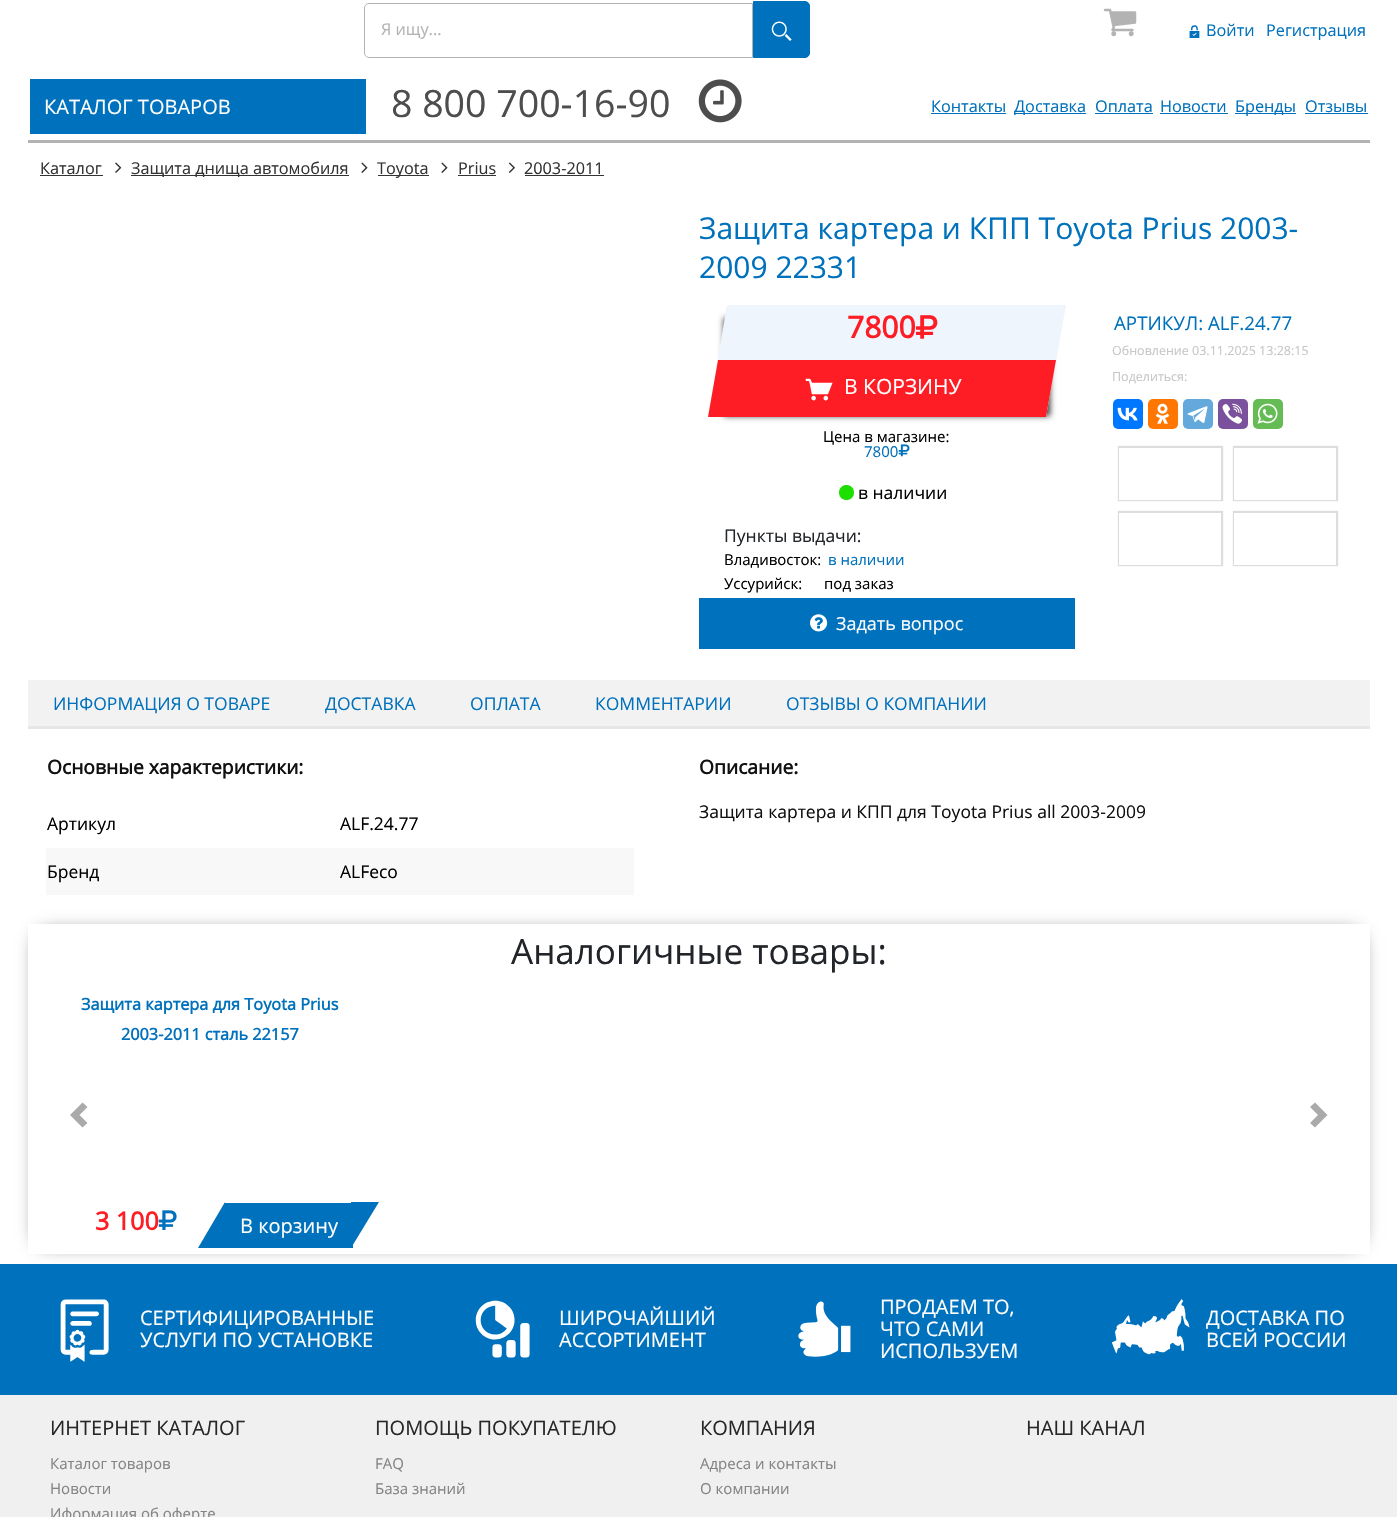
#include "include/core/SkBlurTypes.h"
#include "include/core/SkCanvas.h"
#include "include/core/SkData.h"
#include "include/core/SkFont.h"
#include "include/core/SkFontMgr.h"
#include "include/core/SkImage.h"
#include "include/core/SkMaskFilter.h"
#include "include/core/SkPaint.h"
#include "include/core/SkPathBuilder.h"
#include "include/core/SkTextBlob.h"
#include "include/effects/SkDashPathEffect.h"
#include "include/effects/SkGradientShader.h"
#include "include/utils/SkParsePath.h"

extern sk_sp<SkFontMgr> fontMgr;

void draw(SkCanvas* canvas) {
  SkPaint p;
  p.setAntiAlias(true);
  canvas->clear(SK_ColorWHITE);
  p.setColor(SkColorSetRGB(179, 179, 179));
  canvas->drawRect(SkRect::MakeLTRB(28, 140, 1370, 143), p);
  p.setStyle(SkPaint::kStroke_Style);
  p.setStrokeWidth(1);
  canvas->drawPath(SkPathBuilder().moveTo(369, 3.5f).lineTo(752.5f, 3.5f).lineTo(752.5f, 57.5f).lineTo(369, 57.5f).cubicTo(366.5f, 57.5f, 364.5f, 55.5f, 364.5f, 53).lineTo(364.5f, 8).cubicTo(364.5f, 5.5f, 366.5f, 3.5f, 369, 3.5f).close().detach(), p);
  p.setStyle(SkPaint::kFill_Style);
  p.setColor(SkColorSetRGB(0, 113, 188));
  canvas->drawPath(SkPathBuilder().moveTo(753.5f, 1.5f).lineTo(805, 1.5f).cubicTo(807.5f, 1.5f, 809.5f, 3.5f, 809.5f, 6).lineTo(809.5f, 53).cubicTo(809.5f, 55.5f, 807.5f, 57.5f, 805, 57.5f).lineTo(753.5f, 57.5f).close().detach(), p);
  p.setStyle(SkPaint::kStroke_Style);
  canvas->drawPath(SkPathBuilder().moveTo(753.5f, 1.5f).lineTo(805, 1.5f).cubicTo(807.5f, 1.5f, 809.5f, 3.5f, 809.5f, 6).lineTo(809.5f, 53).cubicTo(809.5f, 55.5f, 807.5f, 57.5f, 805, 57.5f).lineTo(753.5f, 57.5f).close().detach(), p);
  canvas->drawImageRect(SkImages::DeferredFromEncodedData(SkData::MakeFromFileName("images/1.png")), SkRect::MakeLTRB(771, 21, 792, 41), SkSamplingOptions());
  canvas->drawImageRect(SkImages::DeferredFromEncodedData(SkData::MakeFromFileName("images/2.png")), SkRect::MakeLTRB(1103, 8, 1137, 37), SkSamplingOptions());
  canvas->drawImageRect(SkImages::DeferredFromEncodedData(SkData::MakeFromFileName("images/3.png")), SkRect::MakeLTRB(1189, 25, 1200, 38), SkSamplingOptions());
  p.setStyle(SkPaint::kFill_Style);
  canvas->drawRect(SkRect::MakeLTRB(30, 79, 366, 134), p);
  canvas->drawImageRect(SkImages::DeferredFromEncodedData(SkData::MakeFromFileName("images/4.png")), SkRect::MakeLTRB(698, 79, 742, 123), SkSamplingOptions());
  canvas->drawRect(SkRect::MakeLTRB(931, 113, 1006, 114), p);
  canvas->drawRect(SkRect::MakeLTRB(1014, 113, 1086, 114), p);
  canvas->drawRect(SkRect::MakeLTRB(1095, 113, 1153, 114), p);
  canvas->drawRect(SkRect::MakeLTRB(1160, 113, 1228, 114), p);
  canvas->drawRect(SkRect::MakeLTRB(1235, 113, 1296, 114), p);
  canvas->drawRect(SkRect::MakeLTRB(1305, 113, 1368, 114), p);
  p.setColor(SkColorSetRGB(51, 51, 51));
  canvas->drawRect(SkRect::MakeLTRB(40, 175, 103, 176), p);
  canvas->drawImageRect(SkImages::DeferredFromEncodedData(SkData::MakeFromFileName("images/5.png")), SkRect::MakeLTRB(115, 162, 122, 173), SkSamplingOptions());
  canvas->drawRect(SkRect::MakeLTRB(131, 175, 349, 176), p);
  canvas->drawImageRect(SkImages::DeferredFromEncodedData(SkData::MakeFromFileName("images/6.png")), SkRect::MakeLTRB(361, 162, 368, 173), SkSamplingOptions());
  canvas->drawRect(SkRect::MakeLTRB(378, 175, 429, 176), p);
  canvas->drawImageRect(SkImages::DeferredFromEncodedData(SkData::MakeFromFileName("images/6.png")), SkRect::MakeLTRB(441, 162, 448, 173), SkSamplingOptions());
  canvas->drawRect(SkRect::MakeLTRB(458, 175, 496, 176), p);
  canvas->drawImageRect(SkImages::DeferredFromEncodedData(SkData::MakeFromFileName("images/7.png")), SkRect::MakeLTRB(508, 162, 515, 173), SkSamplingOptions());
  canvas->drawRect(SkRect::MakeLTRB(525, 175, 604, 176), p);
  p.setMaskFilter(SkMaskFilter::MakeBlur(kNormal_SkBlurStyle, 3));
  canvas->drawRect(SkRect::MakeLTRB(724, 318, 1050, 416), p);
  p.setMaskFilter(nullptr);
  p.setColor(SkColorSetRGB(238, 245, 252));
  canvas->drawPath(SkPathBuilder().moveTo(727, 305).lineTo(1066, 305).lineTo(1046, 417).lineTo(708, 417).close().detach(), p);
  canvas->drawImageRect(SkImages::DeferredFromEncodedData(SkData::MakeFromFileName("images/8.png")), SkRect::MakeLTRB(915, 315, 938, 339), SkSamplingOptions());
  p.setColor(SkColorSetRGB(255, 29, 37));
  canvas->drawPath(SkPathBuilder().moveTo(718, 360).lineTo(1056, 360).lineTo(1046, 417).lineTo(708, 417).close().detach(), p);
  canvas->drawImageRect(SkImages::DeferredFromEncodedData(SkData::MakeFromFileName("images/9.png")), SkRect::MakeLTRB(805, 378, 833, 401), SkSamplingOptions());
  p.setColor(SkColorSetRGB(29, 223, 0));
  canvas->drawPath(SkPathBuilder().moveTo(854, 492.5f).cubicTo(854, 482.5f, 839, 482.5f, 839, 492.5f).cubicTo(839, 502.5f, 854, 502.5f, 854, 492.5f).close().detach(), p);
  p.setColor(SkColorSetRGB(0, 113, 188));
  canvas->drawRect(SkRect::MakeLTRB(699, 598, 1075, 649), p);
  canvas->drawImageRect(SkImages::DeferredFromEncodedData(SkData::MakeFromFileName("images/11.png")), SkRect::MakeLTRB(810, 614, 828, 632), SkSamplingOptions());
  p.setColor(SkColorSetRGB(0, 119, 255));
  canvas->drawRoundRect(SkRect::MakeLTRB(1113, 399, 1143, 429), 5, 5, p);
  canvas->drawImageRect(SkImages::DeferredFromEncodedData(SkData::MakeFromFileName("images/12.png")), SkRect::MakeLTRB(1117, 407, 1138, 421), SkSamplingOptions());
  p.setColor(SkColorSetRGB(255, 119, 0));
  canvas->drawRoundRect(SkRect::MakeLTRB(1148, 399, 1178, 429), 5, 5, p);
  canvas->drawImageRect(SkImages::DeferredFromEncodedData(SkData::MakeFromFileName("images/13.png")), SkRect::MakeLTRB(1155, 403, 1170, 424), SkSamplingOptions());
  p.setColor(SkColorSetRGB(100, 169, 220));
  canvas->drawRoundRect(SkRect::MakeLTRB(1183, 399, 1213, 429), 5, 5, p);
  canvas->drawImageRect(SkImages::DeferredFromEncodedData(SkData::MakeFromFileName("images/14.png")), SkRect::MakeLTRB(1187, 406, 1208, 423), SkSamplingOptions());
  p.setColor(SkColorSetRGB(123, 81, 157));
  canvas->drawRoundRect(SkRect::MakeLTRB(1218, 399, 1248, 429), 5, 5, p);
  canvas->drawImageRect(SkImages::DeferredFromEncodedData(SkData::MakeFromFileName("images/15.png")), SkRect::MakeLTRB(1222, 403, 1242, 424), SkSamplingOptions());
  p.setColor(SkColorSetRGB(101, 188, 84));
  canvas->drawRoundRect(SkRect::MakeLTRB(1253, 399, 1283, 429), 5, 5, p);
  canvas->drawImageRect(SkImages::DeferredFromEncodedData(SkData::MakeFromFileName("images/16.png")), SkRect::MakeLTRB(1257, 403, 1278, 424), SkSamplingOptions());
  canvas->save();
  canvas->clipPath(SkPathBuilder(SkPathFillType::kEvenOdd).moveTo(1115, 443).lineTo(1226, 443).lineTo(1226, 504).lineTo(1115, 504).close().moveTo(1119, 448).lineTo(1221, 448).lineTo(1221, 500).lineTo(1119, 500).close().detach(), true);
  p.setColor(SkColorSetRGB(221, 221, 221));
  p.setMaskFilter(SkMaskFilter::MakeBlur(kNormal_SkBlurStyle, 0.5f));
  canvas->drawRect(SkRect::MakeLTRB(1118, 446, 1223, 501), p);
  p.setMaskFilter(nullptr);
  canvas->restore();
  canvas->save();
  canvas->clipPath(SkPathBuilder(SkPathFillType::kEvenOdd).moveTo(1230, 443).lineTo(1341, 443).lineTo(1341, 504).lineTo(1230, 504).close().moveTo(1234, 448).lineTo(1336, 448).lineTo(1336, 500).lineTo(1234, 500).close().detach(), true);
  p.setMaskFilter(SkMaskFilter::MakeBlur(kNormal_SkBlurStyle, 0.5f));
  canvas->drawRect(SkRect::MakeLTRB(1233, 446, 1338, 501), p);
  p.setMaskFilter(nullptr);
  canvas->restore();
  canvas->save();
  canvas->clipPath(SkPathBuilder(SkPathFillType::kEvenOdd).moveTo(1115, 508).lineTo(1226, 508).lineTo(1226, 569).lineTo(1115, 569).close().moveTo(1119, 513).lineTo(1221, 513).lineTo(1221, 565).lineTo(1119, 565).close().detach(), true);
  p.setMaskFilter(SkMaskFilter::MakeBlur(kNormal_SkBlurStyle, 0.5f));
  canvas->drawRect(SkRect::MakeLTRB(1118, 511, 1223, 566), p);
  p.setMaskFilter(nullptr);
  canvas->restore();
  canvas->save();
  canvas->clipPath(SkPathBuilder(SkPathFillType::kEvenOdd).moveTo(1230, 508).lineTo(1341, 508).lineTo(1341, 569).lineTo(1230, 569).close().moveTo(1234, 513).lineTo(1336, 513).lineTo(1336, 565).lineTo(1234, 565).close().detach(), true);
  p.setMaskFilter(SkMaskFilter::MakeBlur(kNormal_SkBlurStyle, 0.5f));
  canvas->drawRect(SkRect::MakeLTRB(1233, 511, 1338, 566), p);
  p.setMaskFilter(nullptr);
  canvas->restore();
  p.setColor(SkColorSetRGB(242, 242, 242));
  canvas->drawRect(SkRect::MakeLTRB(28, 680, 1370, 726), p);
  p.setColor(SkColorSetRGB(230, 230, 230));
  canvas->drawRect(SkRect::MakeLTRB(28, 726, 1370, 729), p);
  p.setColor(SkColorSetRGB(248, 248, 248));
  canvas->drawRect(SkRect::MakeLTRB(46, 848, 634, 895), p);
  canvas->save();
  canvas->clipPath(SkPathBuilder(SkPathFillType::kEvenOdd).moveTo(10, 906).lineTo(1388, 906).lineTo(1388, 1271).lineTo(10, 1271).close().moveTo(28, 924).lineTo(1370, 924).lineTo(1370, 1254).lineTo(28, 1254).close().detach(), true);
  p.setColor(SK_ColorBLACK);
  p.setMaskFilter(SkMaskFilter::MakeBlur(kNormal_SkBlurStyle, 9.5f));
  canvas->drawRect(SkRect::MakeLTRB(40, 936, 1358, 1241), p);
  p.setMaskFilter(nullptr);
  canvas->restore();
  p.setColor(SkColorSetRGB(170, 170, 170));
  canvas->drawPath(SkPathBuilder().moveTo(82.5f, 1102.5f).lineTo(70, 1115).lineTo(82.5f, 1127.5f).lineTo(87.5f, 1123).lineTo(79.5f, 1115).lineTo(87.5f, 1107).close().detach(), p);
  canvas->drawImageRect(SkImages::DeferredFromEncodedData(SkData::MakeFromFileName("images/17.png")), SkRect::MakeLTRB(158, 1210, 177, 1230), SkSamplingOptions());
  p.setColor(SkColorSetRGB(0, 113, 188));
  canvas->drawPath(SkPathBuilder().moveTo(225, 1202).lineTo(225, 1248).lineTo(198, 1248).close().detach(), p);
  canvas->drawRect(SkRect::MakeLTRB(225, 1203, 353, 1248), p);
  canvas->drawPath(SkPathBuilder().moveTo(351, 1248).lineTo(351, 1202).lineTo(379, 1202).close().detach(), p);
  p.setColor(SkColorSetRGB(170, 170, 170));
  canvas->drawPath(SkPathBuilder().moveTo(1315, 1102.5f).lineTo(1310, 1107).lineTo(1318, 1115).lineTo(1310, 1123).lineTo(1315, 1127.5f).lineTo(1327.5f, 1115).close().detach(), p);
  p.setColor(SkColorSetRGB(240, 240, 240));
  canvas->drawRect(SkRect::MakeLTRB(0, 1395, 1397, 1517), p);
  p.setColor(SkColorSetRGB(0, 113, 188));
  canvas->drawRect(SkRect::MakeLTRB(0, 1264, 1397, 1395), p);
  canvas->drawImageRect(SkImages::DeferredFromEncodedData(SkData::MakeFromFileName("images/18.png")), SkRect::MakeLTRB(60, 1299, 109, 1362), SkSamplingOptions());
  canvas->drawImageRect(SkImages::DeferredFromEncodedData(SkData::MakeFromFileName("images/19.png")), SkRect::MakeLTRB(475, 1300, 530, 1358), SkSamplingOptions());
  canvas->drawImageRect(SkImages::DeferredFromEncodedData(SkData::MakeFromFileName("images/20.png")), SkRect::MakeLTRB(798, 1301, 851, 1357), SkSamplingOptions());
  canvas->drawImageRect(SkImages::DeferredFromEncodedData(SkData::MakeFromFileName("images/21.png")), SkRect::MakeLTRB(1111, 1299, 1190, 1355), SkSamplingOptions());
  SkFont font1(fontMgr->matchFamilyStyle("Open Sans", SkFontStyle::Normal()), 16.25f);
  font1.setSubpixel(true);
  p.setColor(SkColorSetRGB(179, 179, 179));
  canvas->drawString("Я ищу...", 381, 35, font1, p);
  p.setColor(SkColorSetRGB(0, 113, 188));
  canvas->drawString("Войти", 1206, 36, font1, p);
  canvas->drawString("Регистрация", 1266, 36, font1, p);
  SkFont font2(fontMgr->matchFamilyStyle("Open Sans", SkFontStyle::Normal()), 20);
  font2.setSubpixel(true);
  p.setColor(SK_ColorWHITE);
  canvas->drawString("КАТАЛОГ ТОВАРОВ", 44, 114, font2, p);
  SkFont font3(fontMgr->matchFamilyStyle("Open Sans", SkFontStyle::Normal()), 37.5f);
  font3.setSubpixel(true);
  p.setColor(SkColorSetRGB(77, 77, 77));
  canvas->drawString("8 800 700-16-90", 391, 117, font3, p);
  p.setColor(SkColorSetRGB(0, 113, 188));
  canvas->drawString("Контакты", 931, 112, font1, p);
  canvas->drawString("Доставка", 1014, 112, font1, p);
  canvas->drawString("Оплата", 1095, 112, font1, p);
  canvas->drawString("Новости", 1160, 112, font1, p);
  canvas->drawString("Бренды", 1235, 112, font1, p);
  canvas->drawString("Отзывы", 1305, 112, font1, p);
  p.setColor(SkColorSetRGB(51, 51, 51));
  canvas->drawString("Каталог", 40, 174, font1, p);
  canvas->drawString("Защита днища автомобиля", 131, 174, font1, p);
  canvas->drawString("Toyota", 377, 174, font1, p);
  canvas->drawString("Prius", 458, 174, font1, p);
  canvas->drawString("2003-2011", 524, 174, font1, p);
  SkFont font4(fontMgr->matchFamilyStyle("Open Sans", SkFontStyle::Normal()), 30);
  font4.setSubpixel(true);
  p.setColor(SkColorSetRGB(0, 113, 188));
  canvas->drawString("Защита картера и КПП Toyota Prius 2003-", 699, 239, font4, p);
  canvas->drawString("2009 22331", 699, 278, font4, p);
  SkFont font5(fontMgr->matchFamilyStyle("Open Sans", SkFontStyle::Bold()), 30);
  font5.setSubpixel(true);
  p.setColor(SkColorSetRGB(255, 29, 37));
  canvas->drawString("7800", 847, 338, font5, p);
  SkFont font6(fontMgr->matchFamilyStyle("Open Sans", SkFontStyle::Normal()), 21);
  font6.setSubpixel(true);
  p.setColor(SK_ColorWHITE);
  canvas->drawString("В КОРЗИНУ", 844, 394, font6, p);
  SkFont font7(fontMgr->matchFamilyStyle("Open Sans", SkFontStyle::Normal()), 15);
  font7.setSubpixel(true);
  p.setColor(SK_ColorBLACK);
  canvas->drawString("Цена в магазине:", 823, 442, font7, p);
  p.setColor(SkColorSetRGB(0, 113, 188));
  canvas->drawString("7800", 864, 457, font7, p);
  canvas->drawImageRect(SkImages::DeferredFromEncodedData(SkData::MakeFromFileName("images/10.png")), SkRect::MakeLTRB(898, 444, 910, 457), SkSamplingOptions());
  SkFont font8(fontMgr->matchFamilyStyle("Open Sans", SkFontStyle::Normal()), 17.5f);
  font8.setSubpixel(true);
  p.setColor(SK_ColorBLACK);
  canvas->drawString("в наличии", 858, 499, font8, p);
  p.setColor(SkColorSetRGB(33, 37, 41));
  canvas->drawString("Пункты выдачи:", 724, 542, font8, p);
  p.setColor(SK_ColorBLACK);
  canvas->drawString("Владивосток:", 724, 565, font7, p);
  p.setColor(SkColorSetRGB(0, 113, 188));
  canvas->drawString("в наличии", 828, 565, font7, p);
  p.setColor(SK_ColorBLACK);
  canvas->drawString("Уссурийск:", 724, 589, font7, p);
  canvas->drawString("под заказ", 824, 589, font7, p);
  SkFont font9(fontMgr->matchFamilyStyle("Open Sans", SkFontStyle::Normal()), 18);
  font9.setSubpixel(true);
  p.setColor(SK_ColorWHITE);
  canvas->drawString("Задать вопрос", 836, 630, font9, p);
  SkFont font10(fontMgr->matchFamilyStyle("Open Sans", SkFontStyle::Normal()), 18.75f);
  font10.setSubpixel(true);
  p.setColor(SkColorSetRGB(0, 113, 188));
  canvas->drawString("АРТИКУЛ: ALF.24.77", 1114, 330, font10, p);
  SkFont font11(fontMgr->matchFamilyStyle("Open Sans", SkFontStyle::Normal()), 12.5f);
  font11.setSubpixel(true);
  p.setColor(SkColorSetRGB(199, 199, 199));
  canvas->drawString("Обновление 03.11.2025 13:28:15", 1112, 355, font11, p);
  canvas->drawString("Поделиться:", 1112, 381, font11, p);
  p.setColor(SkColorSetRGB(0, 113, 188));
  canvas->drawString("ИНФОРМАЦИЯ О ТОВАРЕ", 53, 710, font8, p);
  canvas->drawString("ДОСТАВКА", 325, 710, font8, p);
  canvas->drawString("ОПЛАТА", 470, 710, font8, p);
  canvas->drawString("КОММЕНТАРИИ", 595, 710, font8, p);
  canvas->drawString("ОТЗЫВЫ О КОМПАНИИ", 786, 710, font8, p);
  SkFont font12(fontMgr->matchFamilyStyle("Open Sans", SkFontStyle::Bold()), 19.25f);
  font12.setSubpixel(true);
  p.setColor(SkColorSetRGB(17, 17, 17));
  canvas->drawString("Основные характеристики:", 47, 774, font12, p);
  p.setColor(SK_ColorBLACK);
  canvas->drawString("Артикул", 47, 830, font8, p);
  canvas->drawString("ALF.24.77", 340, 830, font8, p);
  canvas->drawString("Бренд", 47, 878, font8, p);
  canvas->drawString("ALFeco", 340, 878, font8, p);
  p.setColor(SkColorSetRGB(17, 17, 17));
  canvas->drawString("Описание:", 699, 774, font12, p);
  canvas->drawString("Защита картера и КПП для Toyota Prius all 2003-2009", 699, 818, font8, p);
  SkFont font13(fontMgr->matchFamilyStyle("Open Sans", SkFontStyle::Normal()), 35);
  font13.setSubpixel(true);
  p.setColor(SkColorSetRGB(33, 37, 41));
  canvas->drawString("Аналогичные товары:", 511, 964, font13, p);
  SkFont font14(fontMgr->matchFamilyStyle("Open Sans", SkFontStyle::Bold()), 16.25f);
  font14.setSubpixel(true);
  p.setColor(SkColorSetRGB(0, 113, 188));
  canvas->drawString("Защита картера для Toyota Prius", 81, 1010, font14, p);
  canvas->drawString("2003-2011 сталь 22157", 121, 1040, font14, p);
  SkFont font15(fontMgr->matchFamilyStyle("Open Sans", SkFontStyle::Bold()), 25);
  font15.setSubpixel(true);
  p.setColor(SkColorSetRGB(255, 29, 37));
  canvas->drawString("3 100", 95, 1230, font15, p);
  p.setColor(SK_ColorWHITE);
  canvas->drawString("В корзину", 240, 1233, font2, p);
  canvas->drawString("СЕРТИФИЦИРОВАННЫЕ", 140, 1325, font2, p);
  canvas->drawString("УСЛУГИ ПО УСТАНОВКЕ", 140, 1347, font2, p);
  canvas->drawString("ШИРОЧАЙШИЙ", 559, 1325, font2, p);
  canvas->drawString("АССОРТИМЕНТ", 559, 1347, font2, p);
  canvas->drawString("ПРОДАЕМ ТО,", 880, 1314, font2, p);
  canvas->drawString("ЧТО САМИ", 880, 1336, font2, p);
  canvas->drawString("ИСПОЛЬЗУЕМ", 880, 1358, font2, p);
  canvas->drawString("ДОСТАВКА ПО", 1206, 1325, font2, p);
  canvas->drawString("ВСЕЙ РОССИИ", 1206, 1347, font2, p);
  p.setColor(SkColorSetRGB(39, 39, 39));
  canvas->drawString("ИНТЕРНЕТ КАТАЛОГ", 50, 1435, font2, p);
  p.setColor(SkColorSetRGB(132, 132, 132));
  canvas->drawString("Каталог товаров", 50, 1469, font7, p);
  canvas->drawString("Новости", 50, 1494, font7, p);
  canvas->drawString("Иформация об оферте", 50, 1519, font7, p);
  p.setColor(SkColorSetRGB(39, 39, 39));
  canvas->drawString("ПОМОЩЬ ПОКУПАТЕЛЮ", 375, 1435, font2, p);
  p.setColor(SkColorSetRGB(132, 132, 132));
  canvas->drawString("FAQ", 375, 1469, font7, p);
  canvas->drawString("База знаний", 375, 1494, font7, p);
  p.setColor(SkColorSetRGB(39, 39, 39));
  canvas->drawString("КОМПАНИЯ", 700, 1435, font2, p);
  p.setColor(SkColorSetRGB(132, 132, 132));
  canvas->drawString("Адреса и контакты", 700, 1469, font7, p);
  canvas->drawString("О компании", 700, 1494, font7, p);
  p.setColor(SkColorSetRGB(39, 39, 39));
  canvas->drawString("НАШ КАНАЛ", 1026, 1435, font2, p);
}
